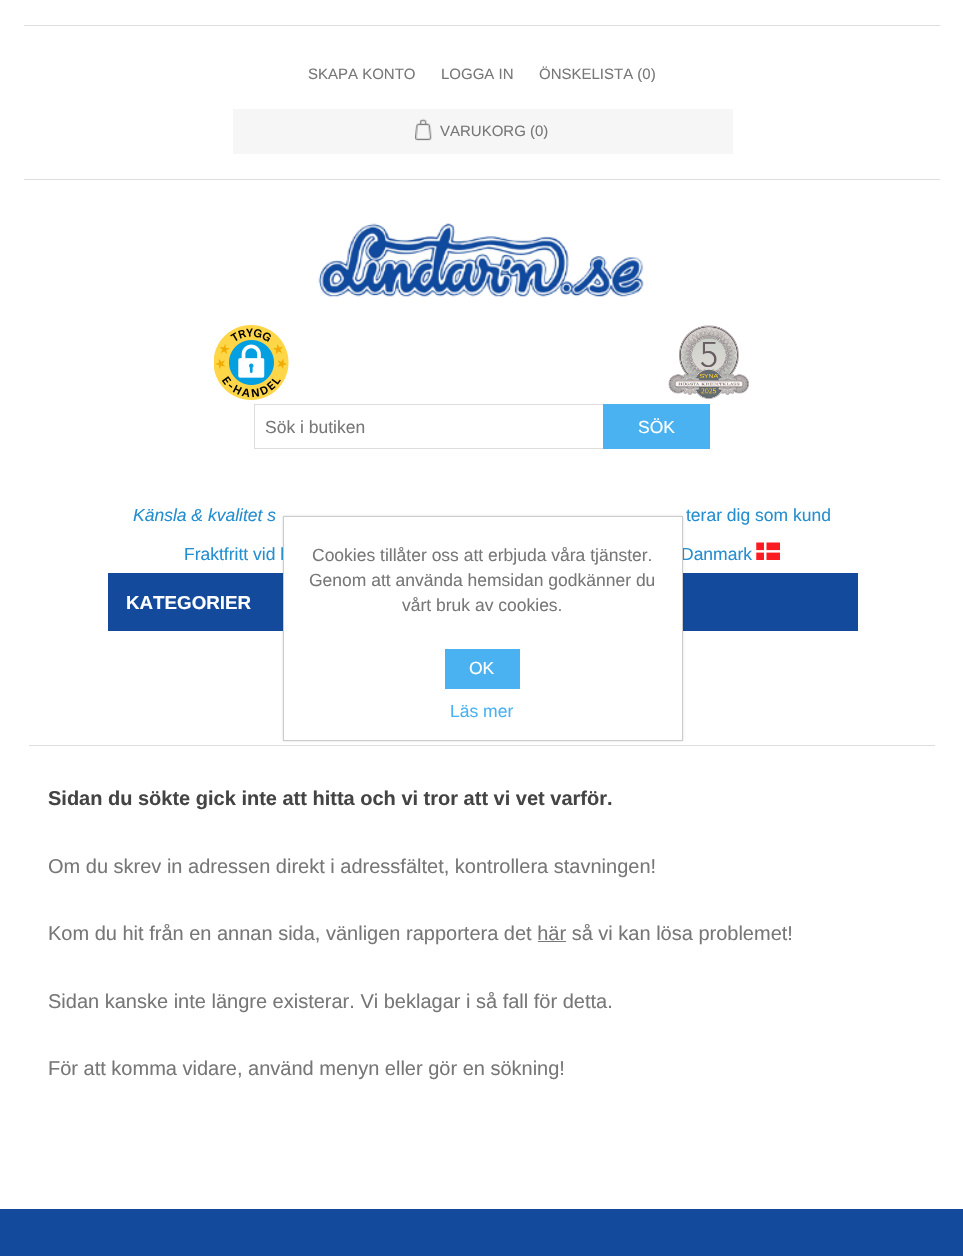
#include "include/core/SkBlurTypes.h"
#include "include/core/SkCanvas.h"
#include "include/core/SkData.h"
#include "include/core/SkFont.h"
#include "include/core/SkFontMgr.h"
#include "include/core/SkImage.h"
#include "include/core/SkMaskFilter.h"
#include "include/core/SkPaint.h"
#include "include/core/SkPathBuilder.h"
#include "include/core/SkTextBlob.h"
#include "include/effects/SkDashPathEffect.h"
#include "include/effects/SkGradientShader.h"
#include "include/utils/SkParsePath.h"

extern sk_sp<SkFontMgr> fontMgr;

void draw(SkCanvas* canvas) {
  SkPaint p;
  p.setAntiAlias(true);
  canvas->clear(SK_ColorWHITE);
  p.setColor(SkColorSetRGB(221, 221, 221));
  canvas->drawRect(SkRect::MakeLTRB(24, 179, 940, 180), p);
  canvas->drawRect(SkRect::MakeLTRB(24, 25, 940, 26), p);
  p.setColor(SkColorSetRGB(246, 246, 246));
  canvas->drawRect(SkRect::MakeLTRB(233, 109, 733, 154), p);
  canvas->drawImageRect(SkImages::DeferredFromEncodedData(SkData::MakeFromFileName("images/1.png")), SkRect::MakeLTRB(415, 118, 432, 141), SkSamplingOptions());
  canvas->drawImageRect(SkImages::DeferredFromEncodedData(SkData::MakeFromFileName("images/2.png")), SkRect::MakeLTRB(318, 223, 644, 297), SkSamplingOptions());
  canvas->drawImageRect(SkImages::DeferredFromEncodedData(SkData::MakeFromFileName("images/3.png")), SkRect::MakeLTRB(214, 325, 289, 400), SkSamplingOptions());
  canvas->drawImageRect(SkImages::DeferredFromEncodedData(SkData::MakeFromFileName("images/4.png")), SkRect::MakeLTRB(668, 325, 749, 399), SkSamplingOptions());
  p.setStyle(SkPaint::kStroke_Style);
  p.setStrokeWidth(1);
  p.setColor(SkColorSetRGB(221, 221, 221));
  canvas->drawRect(SkRect::MakeLTRB(254.5f, 404.5f, 603.5f, 448.5f), p);
  p.setStyle(SkPaint::kFill_Style);
  p.setColor(SkColorSetRGB(74, 178, 241));
  canvas->drawRect(SkRect::MakeLTRB(603, 404, 710, 449), p);
  canvas->drawImageRect(SkImages::DeferredFromEncodedData(SkData::MakeFromFileName("images/5.png")), SkRect::MakeLTRB(756, 542, 780, 560), SkSamplingOptions());
  p.setColor(SkColorSetRGB(20, 74, 156));
  canvas->drawRect(SkRect::MakeLTRB(108, 573, 858, 631), p);
  p.setColor(SkColorSetRGB(221, 221, 221));
  canvas->drawRect(SkRect::MakeLTRB(29, 745, 935, 746), p);
  p.setColor(SkColorSetRGB(119, 119, 119));
  canvas->drawRect(SkRect::MakeLTRB(538, 941, 566, 942), p);
  p.setColor(SkColorSetRGB(20, 74, 156));
  canvas->drawRect(SkRect::MakeLTRB(0, 1209, 963, 1256), p);
  p.setColor(SkColorSetARGB(38, 0, 0, 0));
  p.setMaskFilter(SkMaskFilter::MakeBlur(kNormal_SkBlurStyle, 1));
  canvas->drawRect(SkRect::MakeLTRB(283, 516, 683, 741), p);
  p.setMaskFilter(nullptr);
  SkFont font1(fontMgr->matchFamilyStyle("Liberation Sans", SkFontStyle::Normal()), 15);
  font1.setSubpixel(true);
  p.setColor(SkColorSetRGB(119, 119, 119));
  canvas->drawString("SKAPA KONTO", 308, 79, font1, p);
  canvas->drawString("LOGGA IN", 441, 79, font1, p);
  canvas->drawString("ÖNSKELISTA (0)", 539, 79, font1, p);
  canvas->drawString("VARUKORG (0)", 440, 136, font1, p);
  SkFont font2(fontMgr->matchFamilyStyle("Liberation Sans", SkFontStyle::Normal()), 17.5f);
  font2.setSubpixel(true);
  canvas->drawString("Sök i butiken", 265, 433, font2, p);
  p.setColor(SK_ColorWHITE);
  canvas->drawString("SÖK", 638, 433, font2, p);
  SkFont font3(fontMgr->matchFamilyStyle("Liberation Sans", SkFontStyle::Italic()), 17.5f);
  font3.setSubpixel(true);
  p.setColor(SkColorSetRGB(36, 142, 206));
  canvas->drawString("Känsla & kvalitet s", 133, 521, font3, p);
  canvas->drawString("terar dig som kund", 686, 521, font2, p);
  canvas->drawString("Fraktfritt vid k", 184, 560, font2, p);
  canvas->drawString("Danmark", 681, 560, font2, p);
  SkFont font4(fontMgr->matchFamilyStyle("Liberation Sans", SkFontStyle::Bold()), 18.75f);
  font4.setSubpixel(true);
  p.setColor(SK_ColorWHITE);
  canvas->drawString("KATEGORIER", 126, 609, font4, p);
  SkFont font5(fontMgr->matchFamilyStyle("Liberation Sans", SkFontStyle::Bold()), 20);
  font5.setSubpixel(true);
  p.setColor(SkColorSetRGB(68, 68, 68));
  canvas->drawString("Sidan du sökte gick inte att hitta och vi tror att vi vet varför.", 48, 805, font5, p);
  SkFont font6(fontMgr->matchFamilyStyle("Liberation Sans", SkFontStyle::Normal()), 20);
  font6.setSubpixel(true);
  p.setColor(SkColorSetRGB(119, 119, 119));
  canvas->drawString("Om du skrev in adressen direkt i adressfältet, kontrollera stavningen!", 48, 873, font6, p);
  canvas->drawString("Kom du hit från en annan sida, vänligen rapportera det här så vi kan lösa problemet!", 48, 940, font6, p);
  canvas->drawString("Sidan kanske inte längre existerar. Vi beklagar i så fall för detta.", 48, 1008, font6, p);
  canvas->drawString("För att komma vidare, använd menyn eller gör en sökning!", 48, 1075, font6, p);
  p.setColor(SK_ColorWHITE);
  canvas->drawRect(SkRect::MakeLTRB(283.5f, 516.5f, 682.5f, 740.5f), p);
  p.setStyle(SkPaint::kStroke_Style);
  p.setColor(SkColorSetRGB(204, 204, 204));
  canvas->drawRect(SkRect::MakeLTRB(283.5f, 516.5f, 682.5f, 740.5f), p);
  p.setStyle(SkPaint::kFill_Style);
  p.setColor(SkColorSetRGB(119, 119, 119));
  canvas->drawString("Cookies tillåter oss att erbjuda våra tjänster.", 312, 561, font2, p);
  canvas->drawString("Genom att använda hemsidan godkänner du", 309, 586, font2, p);
  canvas->drawString("vårt bruk av cookies.", 402, 611, font2, p);
  p.setColor(SkColorSetRGB(74, 178, 241));
  canvas->drawRect(SkRect::MakeLTRB(445, 649, 520, 689), p);
  p.setColor(SK_ColorWHITE);
  canvas->drawString("OK", 469, 674, font2, p);
  p.setColor(SkColorSetRGB(74, 178, 241));
  canvas->drawString("Läs mer", 450, 717, font2, p);
}
